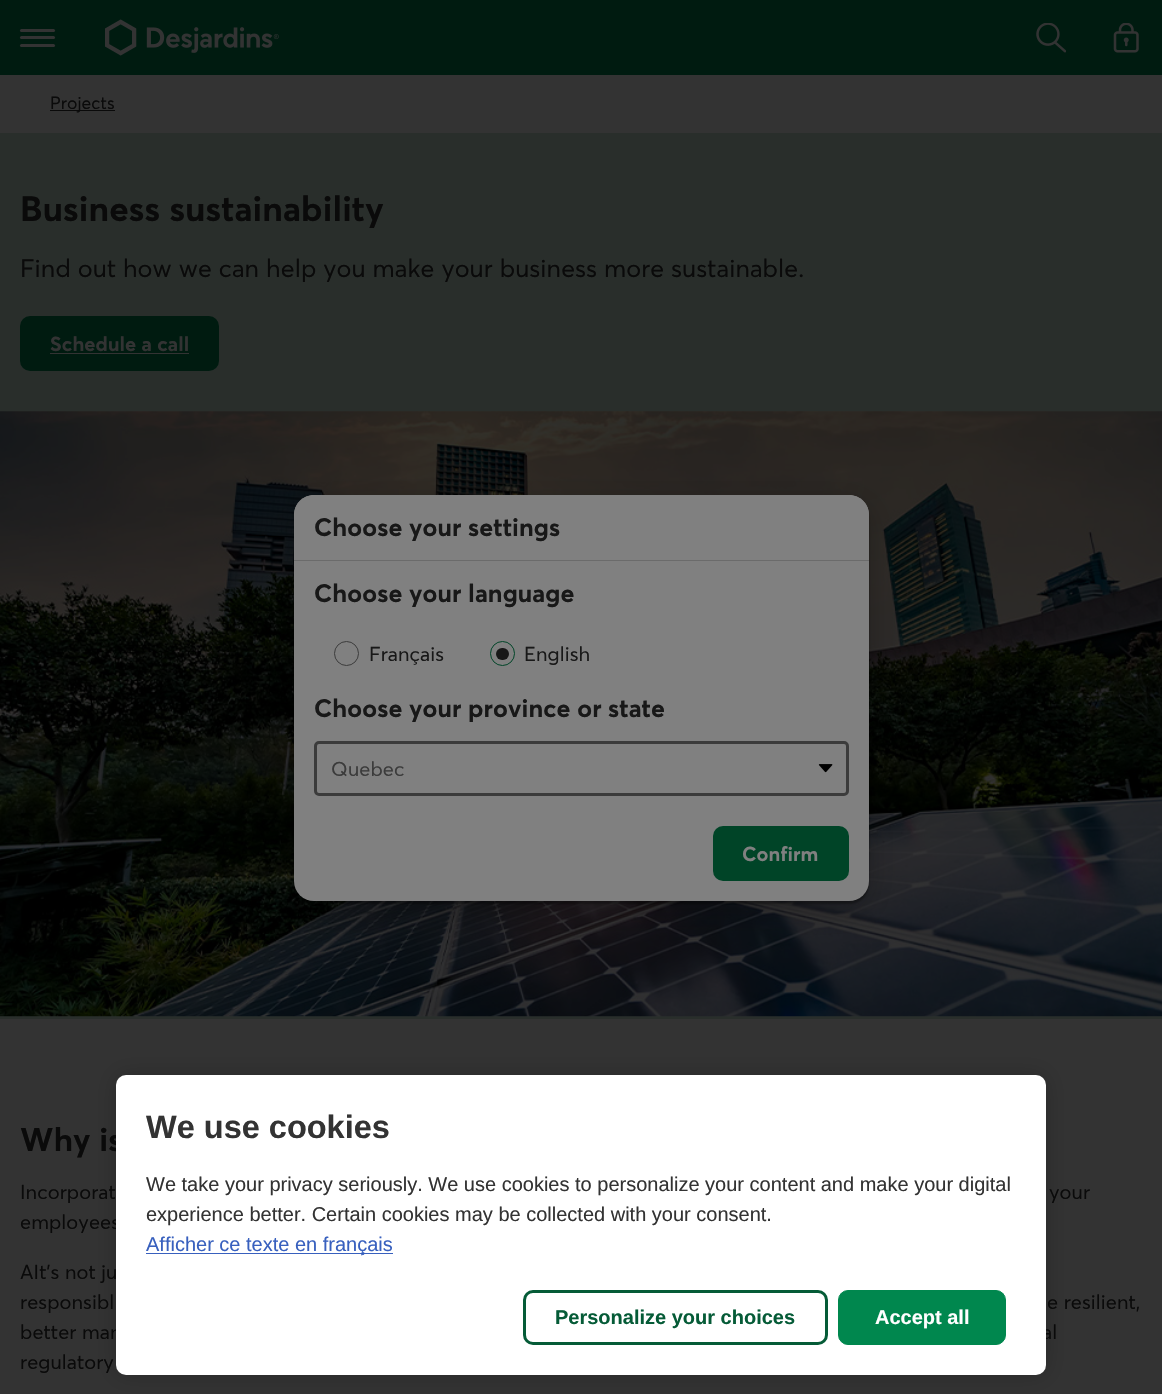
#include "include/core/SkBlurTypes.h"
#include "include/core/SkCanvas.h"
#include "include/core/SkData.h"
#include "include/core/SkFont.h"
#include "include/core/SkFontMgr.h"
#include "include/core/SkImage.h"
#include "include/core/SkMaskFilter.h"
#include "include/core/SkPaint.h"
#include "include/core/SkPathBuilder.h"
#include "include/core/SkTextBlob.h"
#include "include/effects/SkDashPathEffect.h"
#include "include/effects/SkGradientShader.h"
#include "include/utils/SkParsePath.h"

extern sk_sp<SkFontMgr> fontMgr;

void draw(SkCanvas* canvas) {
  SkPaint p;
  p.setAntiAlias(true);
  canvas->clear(SkColorSetRGB(51, 51, 51));
  p.setColor(SkColorSetRGB(10, 10, 10));
  canvas->drawRect(SkRect::MakeLTRB(50, 110, 115, 111), p);
  p.setColor(SkColorSetRGB(41, 46, 43));
  canvas->drawRect(SkRect::MakeLTRB(0, 133, 1162, 1019), p);
  p.setColor(SkColorSetRGB(0, 27, 16));
  canvas->drawRoundRect(SkRect::MakeLTRB(20, 316, 219, 371), 10, 10, p);
  p.setColor(SkColorSetRGB(51, 51, 51));
  canvas->drawRect(SkRect::MakeLTRB(50, 353, 189, 354), p);
  canvas->drawImageRect(SkImages::DeferredFromEncodedData(SkData::MakeFromFileName("images/1.png")), SkRect::MakeLTRB(0, 411, 1162, 1017), SkSamplingOptions());
  p.setColor(SkColorSetRGB(0, 27, 16));
  canvas->drawRect(SkRect::MakeLTRB(0, 0, 1162, 75), p);
  p.setColor(SkColorSetRGB(51, 51, 51));
  canvas->drawRoundRect(SkRect::MakeLTRB(20, 29, 55, 32), 1.5f, 1.5f, p);
  canvas->drawRoundRect(SkRect::MakeLTRB(20, 36, 55, 39), 1.5f, 1.5f, p);
  canvas->drawRoundRect(SkRect::MakeLTRB(20, 44, 55, 47), 1.5f, 1.5f, p);
  canvas->drawImageRect(SkImages::DeferredFromEncodedData(SkData::MakeFromFileName("images/2.png")), SkRect::MakeLTRB(105, 19, 279, 56), SkSamplingOptions());
  canvas->drawImageRect(SkImages::DeferredFromEncodedData(SkData::MakeFromFileName("images/3.png")), SkRect::MakeLTRB(1036, 23, 1066, 53), SkSamplingOptions());
  canvas->drawImageRect(SkImages::DeferredFromEncodedData(SkData::MakeFromFileName("images/4.png")), SkRect::MakeLTRB(1113, 23, 1139, 53), SkSamplingOptions());
  p.setColor(SkColorSetARGB(61, 0, 0, 0));
  p.setMaskFilter(SkMaskFilter::MakeBlur(kNormal_SkBlurStyle, 15));
  canvas->drawRoundRect(SkRect::MakeLTRB(294, 505, 869, 911), 20, 20, p);
  p.setMaskFilter(nullptr);
  p.setColor(SkColorSetARGB(82, 0, 0, 0));
  p.setMaskFilter(SkMaskFilter::MakeBlur(kNormal_SkBlurStyle, 1));
  canvas->drawRoundRect(SkRect::MakeLTRB(294, 498, 869, 904), 20, 20, p);
  p.setMaskFilter(nullptr);
  p.setColor(SkColorSetRGB(128, 128, 128));
  canvas->drawRoundRect(SkRect::MakeLTRB(294, 495, 869, 901), 20, 20, p);
  canvas->drawPath(SkPathBuilder().moveTo(314, 495).lineTo(849, 495).cubicTo(860, 495, 869, 504, 869, 515).lineTo(869, 561).lineTo(294, 561).lineTo(294, 515).cubicTo(294, 504, 303, 495, 314, 495).close().detach(), p);
  p.setColor(SkColorSetRGB(107, 107, 107));
  canvas->drawRect(SkRect::MakeLTRB(294, 560, 869, 561), p);
  p.setStyle(SkPaint::kStroke_Style);
  p.setStrokeWidth(1);
  p.setColor(SkColorSetRGB(59, 59, 59));
  canvas->drawCircle(346.5f, 653.5f, 12, p);
  p.setColor(SkColorSetRGB(0, 68, 39));
  canvas->drawCircle(502.5f, 653.5f, 12, p);
  p.setStyle(SkPaint::kFill_Style);
  p.setColor(SkColorSetRGB(23, 23, 23));
  canvas->drawRoundRect(SkRect::MakeLTRB(496, 648, 509, 660), 6, 6, p);
  canvas->drawImageRect(SkImages::DeferredFromEncodedData(SkData::MakeFromFileName("images/5.png")), SkRect::MakeLTRB(818, 764, 833, 773), SkSamplingOptions());
  p.setStyle(SkPaint::kStroke_Style);
  p.setStrokeWidth(3);
  p.setColor(SkColorSetRGB(59, 59, 59));
  canvas->drawRoundRect(SkRect::MakeLTRB(315.5f, 742.5f, 847.5f, 794.5f), 3.5f, 3.5f, p);
  p.setStyle(SkPaint::kFill_Style);
  p.setColor(SkColorSetRGB(0, 68, 39));
  canvas->drawRoundRect(SkRect::MakeLTRB(713, 826, 849, 881), 10, 10, p);
  p.setColor(SkColorSetARGB(51, 0, 0, 0));
  p.setMaskFilter(SkMaskFilter::MakeBlur(kNormal_SkBlurStyle, 11));
  canvas->drawRoundRect(SkRect::MakeLTRB(116, 1075, 1046, 1375), 10, 10, p);
  p.setMaskFilter(nullptr);
  SkFont font1(fontMgr->matchFamilyStyle("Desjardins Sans", SkFontStyle::Normal()), 17.5f);
  font1.setSubpixel(true);
  p.setColor(SkColorSetRGB(10, 10, 10));
  canvas->drawString("Projects", 50, 109, font1, p);
  SkFont font2(fontMgr->matchFamilyStyle("Desjardins Sans", SkFontStyle::Bold()), 35);
  font2.setSubpixel(true);
  canvas->drawString("Business sustainability", 20, 221, font2, p);
  SkFont font3(fontMgr->matchFamilyStyle("Desjardins Sans", SkFontStyle::Normal()), 25);
  font3.setSubpixel(true);
  canvas->drawString("Find out how we can help you make your business more sustainable.", 20, 277, font3, p);
  SkFont font4(fontMgr->matchFamilyStyle("Desjardins Sans", SkFontStyle::Bold()), 20);
  font4.setSubpixel(true);
  p.setColor(SkColorSetRGB(51, 51, 51));
  canvas->drawString("Schedule a call", 50, 351, font4, p);
  SkFont font5(fontMgr->matchFamilyStyle("Desjardins Sans", SkFontStyle::Bold()), 32.5f);
  font5.setSubpixel(true);
  p.setColor(SkColorSetRGB(10, 10, 10));
  canvas->drawString("Why is", 20, 1151, font5, p);
  SkFont font6(fontMgr->matchFamilyStyle("Desjardins Sans", SkFontStyle::Normal()), 20);
  font6.setSubpixel(true);
  canvas->drawString("Incorporat", 20, 1199, font6, p);
  canvas->drawString("your", 1049, 1199, font6, p);
  canvas->drawString("employees", 20, 1229, font6, p);
  canvas->drawString("AIt's not ju", 20, 1279, font6, p);
  canvas->drawString("responsibl", 20, 1309, font6, p);
  canvas->drawString("e resilient,", 1047, 1309, font6, p);
  canvas->drawString("better man", 20, 1339, font6, p);
  canvas->drawString("al", 1042, 1339, font6, p);
  canvas->drawString("regulatory", 20, 1369, font6, p);
  SkFont font7(fontMgr->matchFamilyStyle("Desjardins Sans", SkFontStyle::Bold()), 25);
  font7.setSubpixel(true);
  p.setColor(SkColorSetRGB(24, 24, 24));
  canvas->drawString("Choose your settings", 314, 536, font7, p);
  canvas->drawString("Choose your language", 314, 602, font7, p);
  canvas->drawString("Français", 369, 661, font6, p);
  canvas->drawString("English", 524, 661, font6, p);
  canvas->drawString("Choose your province or state", 314, 717, font7, p);
  p.setColor(SkColorSetRGB(59, 59, 59));
  canvas->drawString("Quebec", 331, 776, font6, p);
  p.setColor(SkColorSetRGB(128, 128, 128));
  canvas->drawString("Confirm", 742, 861, font4, p);
  p.setColor(SK_ColorWHITE);
  canvas->drawRoundRect(SkRect::MakeLTRB(116, 1075, 1046, 1375), 10, 10, p);
  SkFont font8(fontMgr->matchFamilyStyle("Liberation Sans", SkFontStyle::Bold()), 32.5f);
  font8.setSubpixel(true);
  p.setColor(SkColorSetRGB(51, 51, 51));
  canvas->drawString("We use cookies", 146, 1138, font8, p);
  SkFont font9(fontMgr->matchFamilyStyle("Liberation Sans", SkFontStyle::Normal()), 20);
  font9.setSubpixel(true);
  canvas->drawString("We take your privacy seriously. We use cookies to personalize your content and make your digital", 146, 1191, font9, p);
  canvas->drawString("experience better. Certain cookies may be collected with your consent.", 146, 1221, font9, p);
  p.setColor(SkColorSetRGB(56, 96, 190));
  canvas->drawRect(SkRect::MakeLTRB(146, 1253, 393, 1254), p);
  canvas->drawString("Afficher ce texte en français", 146, 1251, font9, p);
  p.setStyle(SkPaint::kStroke_Style);
  p.setColor(SkColorSetRGB(5, 91, 55));
  canvas->drawRoundRect(SkRect::MakeLTRB(524.5f, 1291.5f, 826.5f, 1343.5f), 8.5f, 8.5f, p);
  SkFont font10(fontMgr->matchFamilyStyle("Liberation Sans", SkFontStyle::Bold()), 20);
  font10.setSubpixel(true);
  p.setStyle(SkPaint::kFill_Style);
  canvas->drawString("Personalize your choices", 555, 1324, font10, p);
  p.setColor(SkColorSetRGB(0, 135, 78));
  canvas->drawRoundRect(SkRect::MakeLTRB(838.5f, 1290.5f, 1005.5f, 1344.5f), 9.5f, 9.5f, p);
  p.setStyle(SkPaint::kStroke_Style);
  p.setStrokeWidth(1);
  canvas->drawRoundRect(SkRect::MakeLTRB(838.5f, 1290.5f, 1005.5f, 1344.5f), 9.5f, 9.5f, p);
  p.setStyle(SkPaint::kFill_Style);
  p.setColor(SK_ColorWHITE);
  canvas->drawString("Accept all", 875, 1324, font10, p);
}
